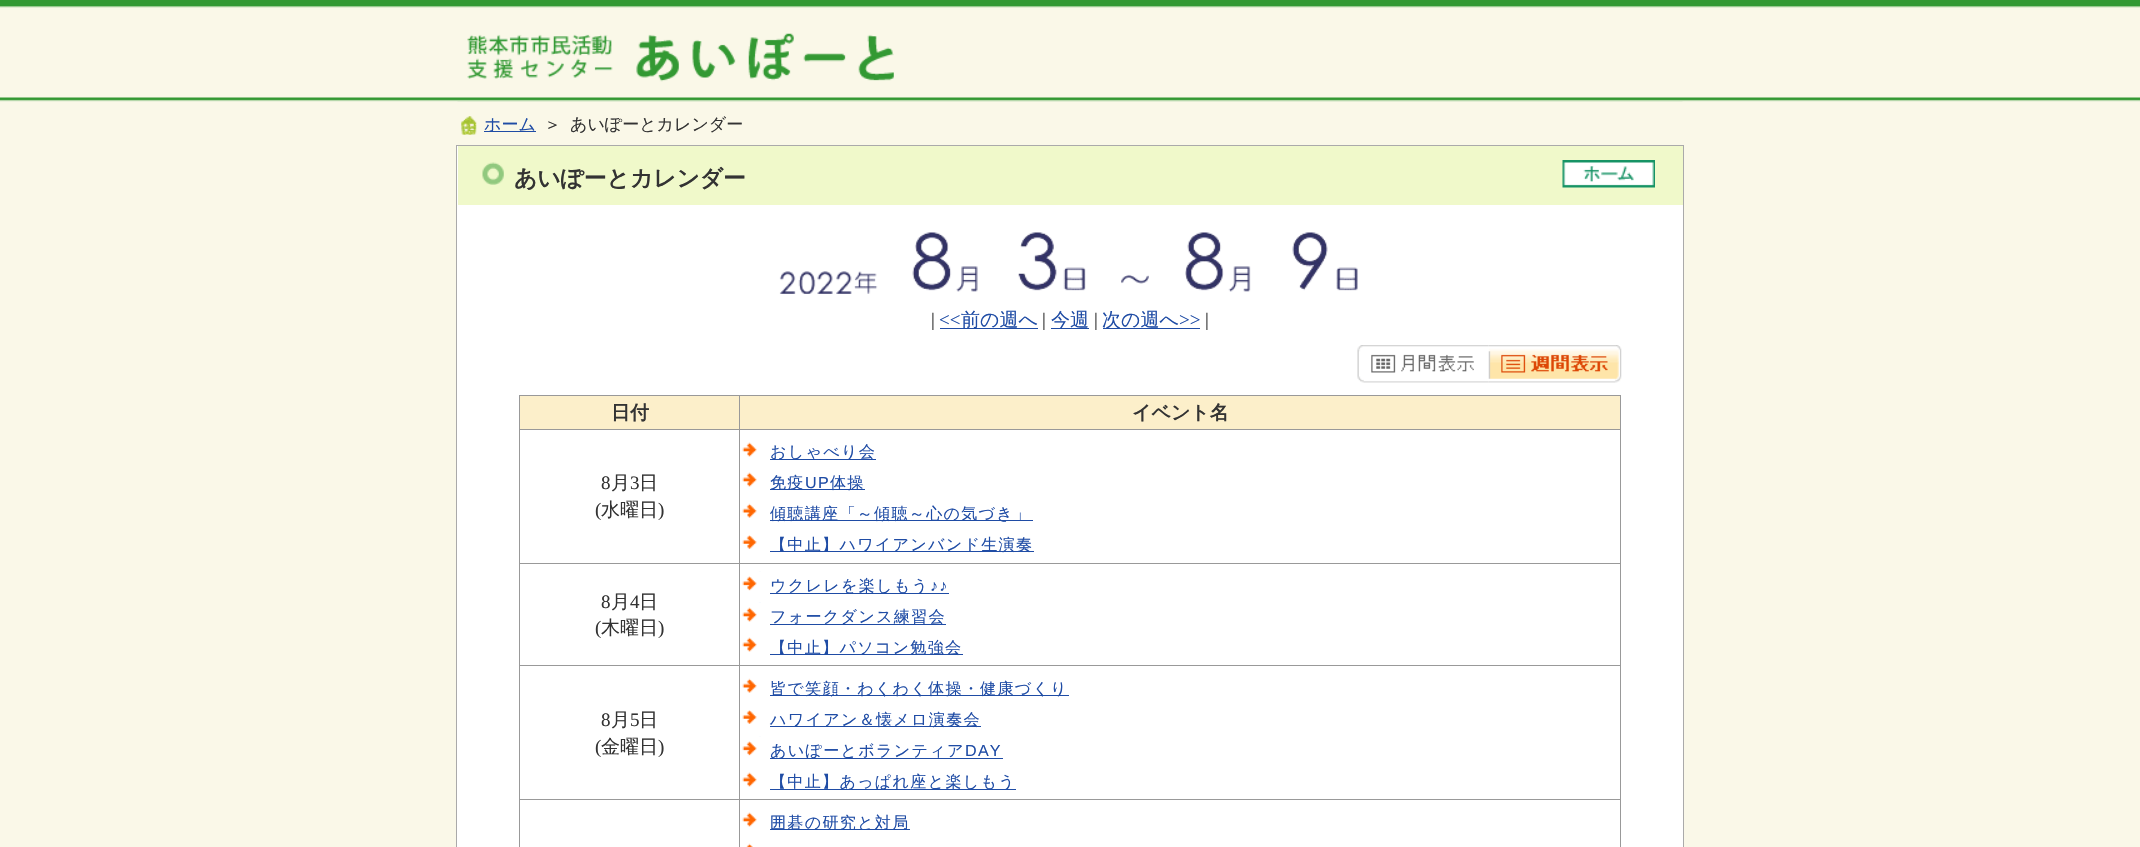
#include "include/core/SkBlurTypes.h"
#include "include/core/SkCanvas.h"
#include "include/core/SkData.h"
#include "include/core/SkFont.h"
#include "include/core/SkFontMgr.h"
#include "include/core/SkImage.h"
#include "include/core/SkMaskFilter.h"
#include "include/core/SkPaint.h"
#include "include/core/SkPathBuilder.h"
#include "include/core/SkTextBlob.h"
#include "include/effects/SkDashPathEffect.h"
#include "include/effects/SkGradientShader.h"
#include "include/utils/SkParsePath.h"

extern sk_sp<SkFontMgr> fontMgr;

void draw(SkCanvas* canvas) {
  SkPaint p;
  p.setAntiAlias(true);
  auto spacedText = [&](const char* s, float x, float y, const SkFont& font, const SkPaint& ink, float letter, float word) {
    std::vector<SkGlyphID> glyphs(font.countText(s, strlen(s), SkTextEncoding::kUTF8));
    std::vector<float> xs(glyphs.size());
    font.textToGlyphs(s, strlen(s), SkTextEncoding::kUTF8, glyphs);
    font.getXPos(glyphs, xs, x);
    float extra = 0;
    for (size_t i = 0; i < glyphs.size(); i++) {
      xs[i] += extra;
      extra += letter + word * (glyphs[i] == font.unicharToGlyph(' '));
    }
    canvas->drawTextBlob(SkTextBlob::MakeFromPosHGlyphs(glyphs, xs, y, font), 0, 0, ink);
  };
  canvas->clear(SkColorSetRGB(250, 248, 232));
  canvas->drawImageRect(SkImages::DeferredFromEncodedData(SkData::MakeFromFileName("images/1.png")), SkRect::MakeLTRB(0, 0, 2140, 102), SkSamplingOptions());
  canvas->drawImageRect(SkImages::DeferredFromEncodedData(SkData::MakeFromFileName("images/2.png")), SkRect::MakeLTRB(457, 33, 1683, 102), SkSamplingOptions());
  canvas->drawImageRect(SkImages::DeferredFromEncodedData(SkData::MakeFromFileName("images/3.png")), SkRect::MakeLTRB(461, 116, 477, 135), SkSamplingOptions());
  p.setColor(SkColorSetRGB(31, 76, 165));
  canvas->drawRect(SkRect::MakeLTRB(484, 131, 536, 132), p);
  p.setColor(SK_ColorWHITE);
  canvas->drawRect(SkRect::MakeLTRB(457, 146, 1683, 847), p);
  p.setColor(SkColorSetRGB(170, 170, 170));
  canvas->drawRect(SkRect::MakeLTRB(456, 145, 1684, 146), p);
  canvas->drawRect(SkRect::MakeLTRB(1683, 145, 1684, 847), p);
  canvas->drawRect(SkRect::MakeLTRB(456, 145, 457, 847), p);
  p.setColor(SkColorSetRGB(240, 249, 202));
  canvas->drawRect(SkRect::MakeLTRB(458, 146, 1683, 205), p);
  canvas->drawImageRect(SkImages::DeferredFromEncodedData(SkData::MakeFromFileName("images/4.png")), SkRect::MakeLTRB(482, 162, 504, 185), SkSamplingOptions());
  canvas->drawImageRect(SkImages::DeferredFromEncodedData(SkData::MakeFromFileName("images/5.png")), SkRect::MakeLTRB(1562, 160, 1655, 188), SkSamplingOptions());
  canvas->drawImageRect(SkImages::DeferredFromEncodedData(SkData::MakeFromFileName("images/6.png")), SkRect::MakeLTRB(779, 271, 796, 294), SkSamplingOptions());
  canvas->drawImageRect(SkImages::DeferredFromEncodedData(SkData::MakeFromFileName("images/7.png")), SkRect::MakeLTRB(798, 271, 816, 294), SkSamplingOptions());
  canvas->drawImageRect(SkImages::DeferredFromEncodedData(SkData::MakeFromFileName("images/8.png")), SkRect::MakeLTRB(817, 271, 833, 294), SkSamplingOptions());
  canvas->drawImageRect(SkImages::DeferredFromEncodedData(SkData::MakeFromFileName("images/9.png")), SkRect::MakeLTRB(836, 271, 852, 294), SkSamplingOptions());
  canvas->drawImageRect(SkImages::DeferredFromEncodedData(SkData::MakeFromFileName("images/10.png")), SkRect::MakeLTRB(854, 271, 878, 294), SkSamplingOptions());
  canvas->drawImageRect(SkImages::DeferredFromEncodedData(SkData::MakeFromFileName("images/11.png")), SkRect::MakeLTRB(912, 232, 952, 291), SkSamplingOptions());
  canvas->drawImageRect(SkImages::DeferredFromEncodedData(SkData::MakeFromFileName("images/12.png")), SkRect::MakeLTRB(956, 266, 978, 292), SkSamplingOptions());
  canvas->drawImageRect(SkImages::DeferredFromEncodedData(SkData::MakeFromFileName("images/13.png")), SkRect::MakeLTRB(1018, 232, 1057, 291), SkSamplingOptions());
  canvas->drawImageRect(SkImages::DeferredFromEncodedData(SkData::MakeFromFileName("images/14.png")), SkRect::MakeLTRB(1063, 267, 1086, 291), SkSamplingOptions());
  canvas->drawImageRect(SkImages::DeferredFromEncodedData(SkData::MakeFromFileName("images/15.png")), SkRect::MakeLTRB(1121, 274, 1149, 284), SkSamplingOptions());
  canvas->drawImageRect(SkImages::DeferredFromEncodedData(SkData::MakeFromFileName("images/16.png")), SkRect::MakeLTRB(1185, 232, 1224, 291), SkSamplingOptions());
  canvas->drawImageRect(SkImages::DeferredFromEncodedData(SkData::MakeFromFileName("images/17.png")), SkRect::MakeLTRB(1228, 266, 1251, 292), SkSamplingOptions());
  canvas->drawImageRect(SkImages::DeferredFromEncodedData(SkData::MakeFromFileName("images/18.png")), SkRect::MakeLTRB(1292, 232, 1328, 291), SkSamplingOptions());
  canvas->drawImageRect(SkImages::DeferredFromEncodedData(SkData::MakeFromFileName("images/19.png")), SkRect::MakeLTRB(1336, 267, 1358, 291), SkSamplingOptions());
  p.setColor(SkColorSetRGB(31, 76, 165));
  canvas->drawRect(SkRect::MakeLTRB(940, 328, 1038, 329), p);
  canvas->drawRect(SkRect::MakeLTRB(1051, 328, 1089, 329), p);
  canvas->drawRect(SkRect::MakeLTRB(1103, 328, 1200, 329), p);
  canvas->drawImageRect(SkImages::DeferredFromEncodedData(SkData::MakeFromFileName("images/20.png")), SkRect::MakeLTRB(1357, 345, 1489, 383), SkSamplingOptions());
  canvas->drawImageRect(SkImages::DeferredFromEncodedData(SkData::MakeFromFileName("images/21.png")), SkRect::MakeLTRB(1488, 345, 1622, 383), SkSamplingOptions());
  p.setColor(SkColorSetRGB(153, 153, 153));
  canvas->drawRect(SkRect::MakeLTRB(519, 395, 1621, 396), p);
  canvas->drawRect(SkRect::MakeLTRB(1620, 395, 1621, 847), p);
  canvas->drawRect(SkRect::MakeLTRB(519, 395, 520, 847), p);
  p.setColor(SkColorSetRGB(252, 239, 202));
  canvas->drawRect(SkRect::MakeLTRB(520, 396, 739, 429), p);
  canvas->drawRect(SkRect::MakeLTRB(740, 396, 1620, 429), p);
  p.setColor(SkColorSetRGB(153, 153, 153));
  canvas->drawRect(SkRect::MakeLTRB(739, 429, 1621, 430), p);
  canvas->drawRect(SkRect::MakeLTRB(739, 563, 1621, 564), p);
  canvas->drawRect(SkRect::MakeLTRB(739, 665, 1621, 666), p);
  canvas->drawRect(SkRect::MakeLTRB(739, 799, 1621, 800), p);
  canvas->drawRect(SkRect::MakeLTRB(739, 799, 740, 847), p);
  canvas->drawRect(SkRect::MakeLTRB(519, 799, 740, 800), p);
  canvas->drawRect(SkRect::MakeLTRB(739, 665, 740, 800), p);
  canvas->drawRect(SkRect::MakeLTRB(519, 665, 740, 666), p);
  canvas->drawRect(SkRect::MakeLTRB(739, 563, 740, 666), p);
  canvas->drawRect(SkRect::MakeLTRB(519, 563, 740, 564), p);
  canvas->drawRect(SkRect::MakeLTRB(739, 429, 740, 564), p);
  canvas->drawRect(SkRect::MakeLTRB(519, 429, 740, 430), p);
  canvas->drawRect(SkRect::MakeLTRB(739, 395, 740, 430), p);
  canvas->drawImageRect(SkImages::DeferredFromEncodedData(SkData::MakeFromFileName("images/22.png")), SkRect::MakeLTRB(742, 442, 757, 457), SkSamplingOptions());
  p.setColor(SkColorSetRGB(31, 76, 165));
  canvas->drawRect(SkRect::MakeLTRB(770, 459, 876, 460), p);
  canvas->drawImageRect(SkImages::DeferredFromEncodedData(SkData::MakeFromFileName("images/22.png")), SkRect::MakeLTRB(742, 472, 757, 487), SkSamplingOptions());
  canvas->drawRect(SkRect::MakeLTRB(770, 489, 865, 490), p);
  canvas->drawImageRect(SkImages::DeferredFromEncodedData(SkData::MakeFromFileName("images/23.png")), SkRect::MakeLTRB(742, 503, 757, 518), SkSamplingOptions());
  canvas->drawRect(SkRect::MakeLTRB(770, 520, 1033, 521), p);
  canvas->drawImageRect(SkImages::DeferredFromEncodedData(SkData::MakeFromFileName("images/24.png")), SkRect::MakeLTRB(742, 535, 757, 549), SkSamplingOptions());
  canvas->drawRect(SkRect::MakeLTRB(770, 551, 1034, 552), p);
  canvas->drawImageRect(SkImages::DeferredFromEncodedData(SkData::MakeFromFileName("images/25.png")), SkRect::MakeLTRB(742, 571, 761, 591), SkSamplingOptions());
  canvas->drawRect(SkRect::MakeLTRB(770, 593, 949, 594), p);
  canvas->drawImageRect(SkImages::DeferredFromEncodedData(SkData::MakeFromFileName("images/26.png")), SkRect::MakeLTRB(742, 602, 761, 622), SkSamplingOptions());
  canvas->drawRect(SkRect::MakeLTRB(770, 624, 946, 625), p);
  canvas->drawImageRect(SkImages::DeferredFromEncodedData(SkData::MakeFromFileName("images/22.png")), SkRect::MakeLTRB(742, 637, 757, 652), SkSamplingOptions());
  canvas->drawRect(SkRect::MakeLTRB(770, 654, 963, 655), p);
  canvas->drawImageRect(SkImages::DeferredFromEncodedData(SkData::MakeFromFileName("images/23.png")), SkRect::MakeLTRB(742, 678, 757, 693), SkSamplingOptions());
  canvas->drawRect(SkRect::MakeLTRB(770, 695, 1069, 696), p);
  canvas->drawImageRect(SkImages::DeferredFromEncodedData(SkData::MakeFromFileName("images/24.png")), SkRect::MakeLTRB(742, 710, 757, 724), SkSamplingOptions());
  canvas->drawRect(SkRect::MakeLTRB(770, 726, 981, 727), p);
  canvas->drawImageRect(SkImages::DeferredFromEncodedData(SkData::MakeFromFileName("images/25.png")), SkRect::MakeLTRB(742, 736, 761, 756), SkSamplingOptions());
  canvas->drawRect(SkRect::MakeLTRB(770, 758, 1003, 759), p);
  canvas->drawImageRect(SkImages::DeferredFromEncodedData(SkData::MakeFromFileName("images/22.png")), SkRect::MakeLTRB(742, 772, 757, 787), SkSamplingOptions());
  canvas->drawRect(SkRect::MakeLTRB(770, 789, 1016, 790), p);
  canvas->drawImageRect(SkImages::DeferredFromEncodedData(SkData::MakeFromFileName("images/22.png")), SkRect::MakeLTRB(742, 812, 757, 827), SkSamplingOptions());
  canvas->drawRect(SkRect::MakeLTRB(770, 829, 910, 830), p);
  canvas->drawImageRect(SkImages::DeferredFromEncodedData(SkData::MakeFromFileName("images/27.png")), SkRect::MakeLTRB(746, 843, 753, 847), SkSamplingOptions());
  SkFont font1(fontMgr->matchFamilyStyle("WenQuanYi Zen Hei", SkFontStyle(500, SkFontStyle::kNormal_Width, SkFontStyle::kUpright_Slant)), 17);
  font1.setSubpixel(true);
  canvas->drawString("ホーム", 484, 130, font1, p);
  p.setColor(SkColorSetRGB(51, 51, 51));
  canvas->drawString("＞", 544, 130, font1, p);
  canvas->drawString("あいぽーとカレンダー", 570, 130, font1, p);
  SkFont font2(fontMgr->matchFamilyStyle("WenQuanYi Zen Hei", SkFontStyle::Bold()), 22.75f);
  font2.setSubpixel(true);
  canvas->drawString("あいぽーとカレンダー", 514, 186, font2, p);
  SkFont font3(fontMgr->matchFamilyStyle("Liberation Serif", SkFontStyle::Normal()), 19);
  font3.setSubpixel(true);
  canvas->drawString("|", 931, 326, font3, p);
  p.setColor(SkColorSetRGB(31, 76, 165));
  canvas->drawString("<<", 939, 326, font3, p);
  SkFont font4(fontMgr->matchFamilyStyle("WenQuanYi Zen Hei", SkFontStyle(500, SkFontStyle::kNormal_Width, SkFontStyle::kUpright_Slant)), 19);
  font4.setSubpixel(true);
  canvas->drawString("前の週へ", 961, 326, font4, p);
  p.setColor(SkColorSetRGB(51, 51, 51));
  canvas->drawString("|", 1042, 326, font3, p);
  p.setColor(SkColorSetRGB(31, 76, 165));
  canvas->drawString("今週", 1051, 326, font4, p);
  p.setColor(SkColorSetRGB(51, 51, 51));
  canvas->drawString("|", 1094, 326, font3, p);
  p.setColor(SkColorSetRGB(31, 76, 165));
  canvas->drawString("次の週へ", 1102, 326, font4, p);
  canvas->drawString(">>", 1179, 326, font3, p);
  p.setColor(SkColorSetRGB(51, 51, 51));
  canvas->drawString("|", 1205, 326, font3, p);
  SkFont font5(fontMgr->matchFamilyStyle("WenQuanYi Zen Hei", SkFontStyle::Bold()), 19);
  font5.setSubpixel(true);
  canvas->drawString("日付", 611, 419, font5, p);
  canvas->drawString("イベント名", 1132, 419, font5, p);
  canvas->drawString("8", 601, 489, font3, p);
  canvas->drawString("月", 611, 489, font4, p);
  canvas->drawString("3", 630, 489, font3, p);
  canvas->drawString("日", 639, 489, font4, p);
  canvas->drawString("(", 595, 516, font3, p);
  canvas->drawString("水曜日", 601, 516, font4, p);
  canvas->drawString(")", 658, 516, font3, p);
  SkFont font6(fontMgr->matchFamilyStyle("WenQuanYi Zen Hei", SkFontStyle(500, SkFontStyle::kNormal_Width, SkFontStyle::kUpright_Slant)), 16.1f);
  font6.setSubpixel(true);
  p.setColor(SkColorSetRGB(31, 76, 165));
  spacedText("おしゃべり会", 770, 457, font6, p, 1.25f, 0);
  spacedText("免疫", 770, 488, font6, p, 1.25f, 0);
  SkFont font7(fontMgr->matchFamilyStyle("Liberation Sans", SkFontStyle::Normal()), 16.1f);
  font7.setSubpixel(true);
  spacedText("UP", 805, 488, font7, p, 1.25f, 0);
  spacedText("体操", 830, 488, font6, p, 1.25f, 0);
  spacedText("傾聴講座「～傾聴～心の気づき」", 770, 519, font6, p, 1.25f, 0);
  spacedText("【中止】ハワイアンバンド生演奏", 770, 550, font6, p, 1.25f, 0);
  p.setColor(SkColorSetRGB(51, 51, 51));
  canvas->drawString("8", 601, 608, font3, p);
  canvas->drawString("月", 611, 608, font4, p);
  canvas->drawString("4", 630, 608, font3, p);
  canvas->drawString("日", 639, 608, font4, p);
  canvas->drawString("(", 595, 634, font3, p);
  canvas->drawString("木曜日", 601, 634, font4, p);
  canvas->drawString(")", 658, 634, font3, p);
  p.setColor(SkColorSetRGB(31, 76, 165));
  spacedText("ウクレレを楽しもう", 770, 591, font6, p, 1.25f, 0);
  spacedText("♪♪", 930, 591, font7, p, 1.25f, 0);
  spacedText("フォークダンス練習会", 770, 622, font6, p, 1.25f, 0);
  spacedText("【中止】パソコン勉強会", 770, 653, font6, p, 1.25f, 0);
  p.setColor(SkColorSetRGB(51, 51, 51));
  canvas->drawString("8", 601, 726, font3, p);
  canvas->drawString("月", 611, 726, font4, p);
  canvas->drawString("5", 630, 726, font3, p);
  canvas->drawString("日", 639, 726, font4, p);
  canvas->drawString("(", 595, 753, font3, p);
  canvas->drawString("金曜日", 601, 753, font4, p);
  canvas->drawString(")", 658, 753, font3, p);
  p.setColor(SkColorSetRGB(31, 76, 165));
  spacedText("皆で笑顔・わくわく体操・健康づくり", 770, 694, font6, p, 1.25f, 0);
  spacedText("ハワイアン＆懐メロ演奏会", 770, 725, font6, p, 1.25f, 0);
  spacedText("あいぽーとボランティア", 770, 756, font6, p, 1.25f, 0);
  spacedText("DAY", 965, 756, font7, p, 1.25f, 0);
  spacedText("【中止】あっぱれ座と楽しもう", 770, 787, font6, p, 1.25f, 0);
  spacedText("囲碁の研究と対局", 770, 828, font6, p, 1.25f, 0);
}
